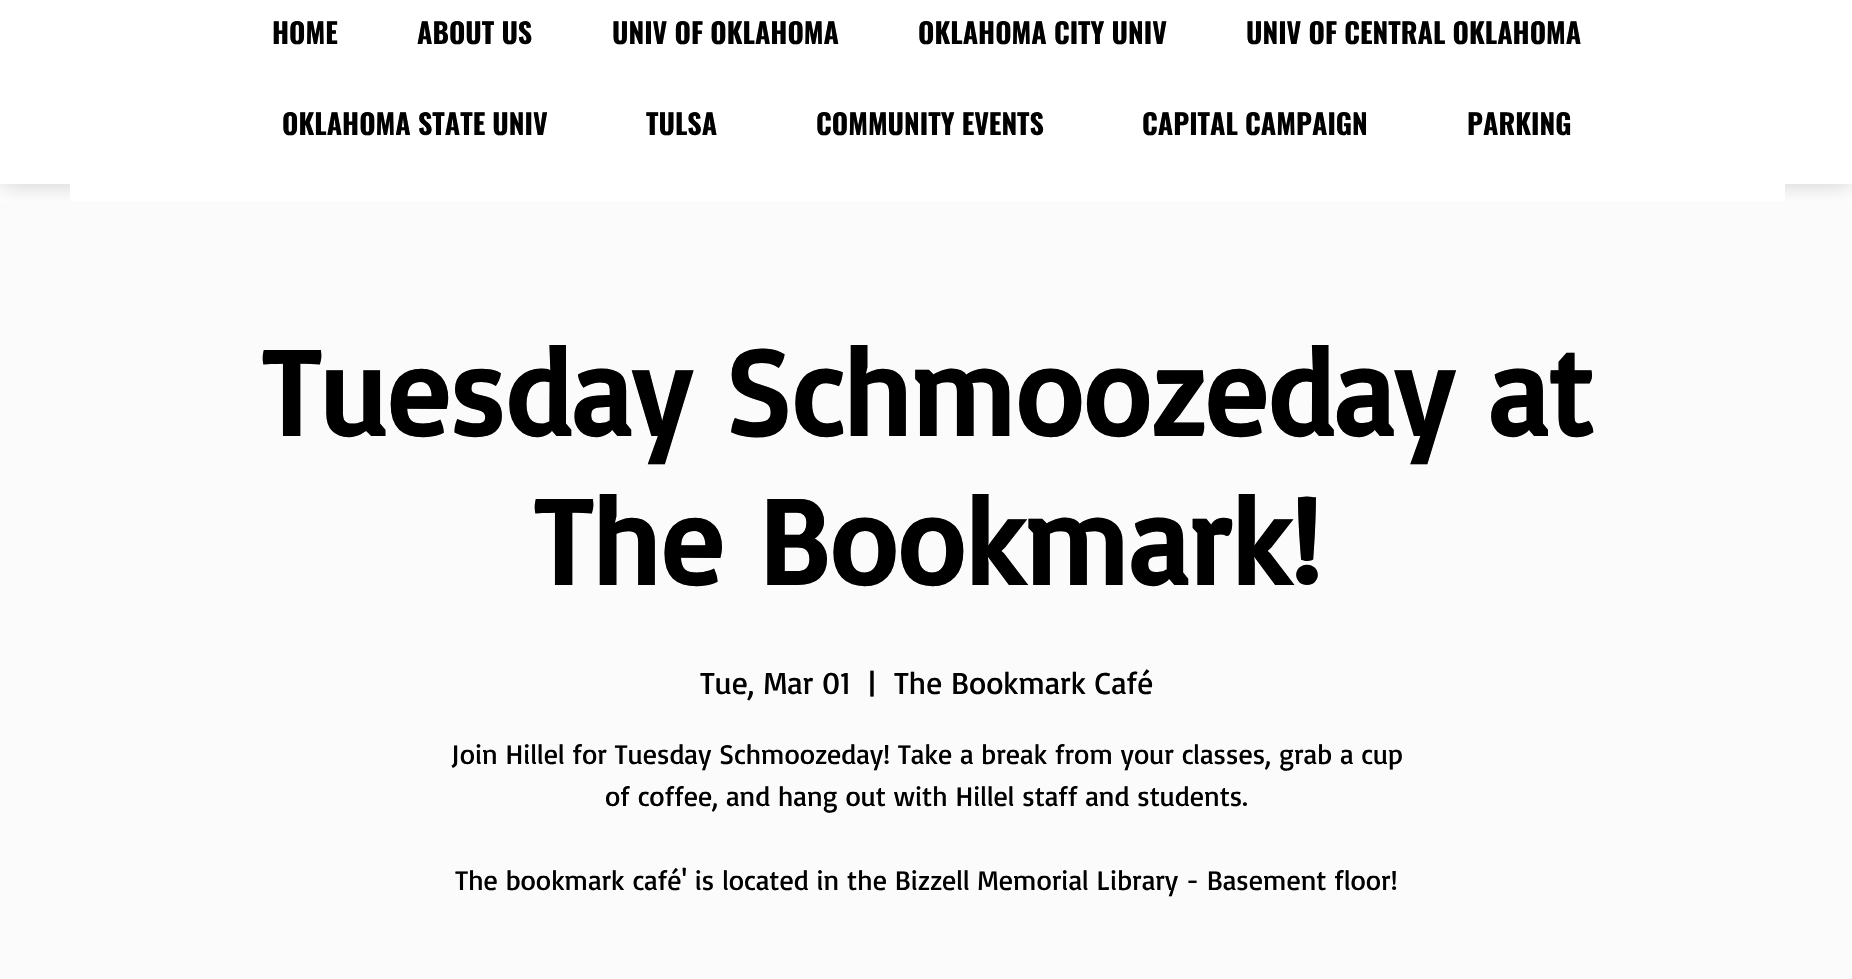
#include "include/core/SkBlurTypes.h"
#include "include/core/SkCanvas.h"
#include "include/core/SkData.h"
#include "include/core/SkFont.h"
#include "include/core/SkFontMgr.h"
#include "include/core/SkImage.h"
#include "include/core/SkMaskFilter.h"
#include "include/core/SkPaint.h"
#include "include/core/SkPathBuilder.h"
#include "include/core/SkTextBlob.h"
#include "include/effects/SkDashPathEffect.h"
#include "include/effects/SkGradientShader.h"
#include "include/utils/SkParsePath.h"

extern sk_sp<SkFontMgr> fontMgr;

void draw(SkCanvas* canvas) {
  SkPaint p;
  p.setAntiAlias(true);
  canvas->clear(SK_ColorWHITE);
  p.setColor(SkColorSetARGB(51, 0, 0, 0));
  p.setMaskFilter(SkMaskFilter::MakeBlur(kNormal_SkBlurStyle, 12));
  canvas->drawRect(SkRect::MakeLTRB(0, -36, 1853, 184), p);
  p.setMaskFilter(nullptr);
  p.setColor(SK_ColorWHITE);
  canvas->drawRect(SkRect::MakeLTRB(0, 0, 1852, 184), p);
  canvas->drawRect(SkRect::MakeLTRB(70, 184, 1785, 201), p);
  p.setColor(SkColorSetRGB(251, 251, 251));
  canvas->drawRect(SkRect::MakeLTRB(0, 203, 1852, 979), p);
  SkFont font1(fontMgr->matchFamilyStyle("Oswald", SkFontStyle::Bold()), 28);
  font1.setSubpixel(true);
  p.setColor(SK_ColorBLACK);
  canvas->drawString("HOME", 272, 44, font1, p);
  canvas->drawString("ABOUT US", 417, 44, font1, p);
  canvas->drawString("UNIV OF OKLAHOMA", 612, 44, font1, p);
  canvas->drawString("OKLAHOMA CITY UNIV", 918, 44, font1, p);
  canvas->drawString("UNIV OF CENTRAL OKLAHOMA", 1246, 44, font1, p);
  canvas->drawString("OKLAHOMA STATE UNIV", 282, 135, font1, p);
  canvas->drawString("TULSA", 646, 135, font1, p);
  canvas->drawString("COMMUNITY EVENTS", 816, 135, font1, p);
  canvas->drawString("CAPITAL CAMPAIGN", 1142, 135, font1, p);
  canvas->drawString("PARKING", 1467, 135, font1, p);
  SkFont font2(fontMgr->matchFamilyStyle("Basic", SkFontStyle::Bold()), 124.25f);
  font2.setSubpixel(true);
  canvas->drawString("Tuesday Schmoozeday at", 261, 436, font2, p);
  canvas->drawString("The Bookmark!", 533, 585, font2, p);
  SkFont font3(fontMgr->matchFamilyStyle("Basic", SkFontStyle::Normal()), 31.5f);
  font3.setSubpixel(true);
  canvas->drawString("Tue, Mar 01", 700, 694, font3, p);
  canvas->drawString("|", 868, 694, font3, p);
  canvas->drawString("The Bookmark Café", 894, 694, font3, p);
  SkFont font4(fontMgr->matchFamilyStyle("Basic", SkFontStyle::Normal()), 28);
  font4.setSubpixel(true);
  canvas->drawString("Join Hillel for Tuesday Schmoozeday! Take a break from your classes, grab a cup", 451, 764, font4, p);
  canvas->drawString("of coffee, and hang out with Hillel staff and students.", 605, 806, font4, p);
  canvas->drawString("The bookmark café' is located in the Bizzell Memorial Library - Basement floor!", 455, 890, font4, p);
}
